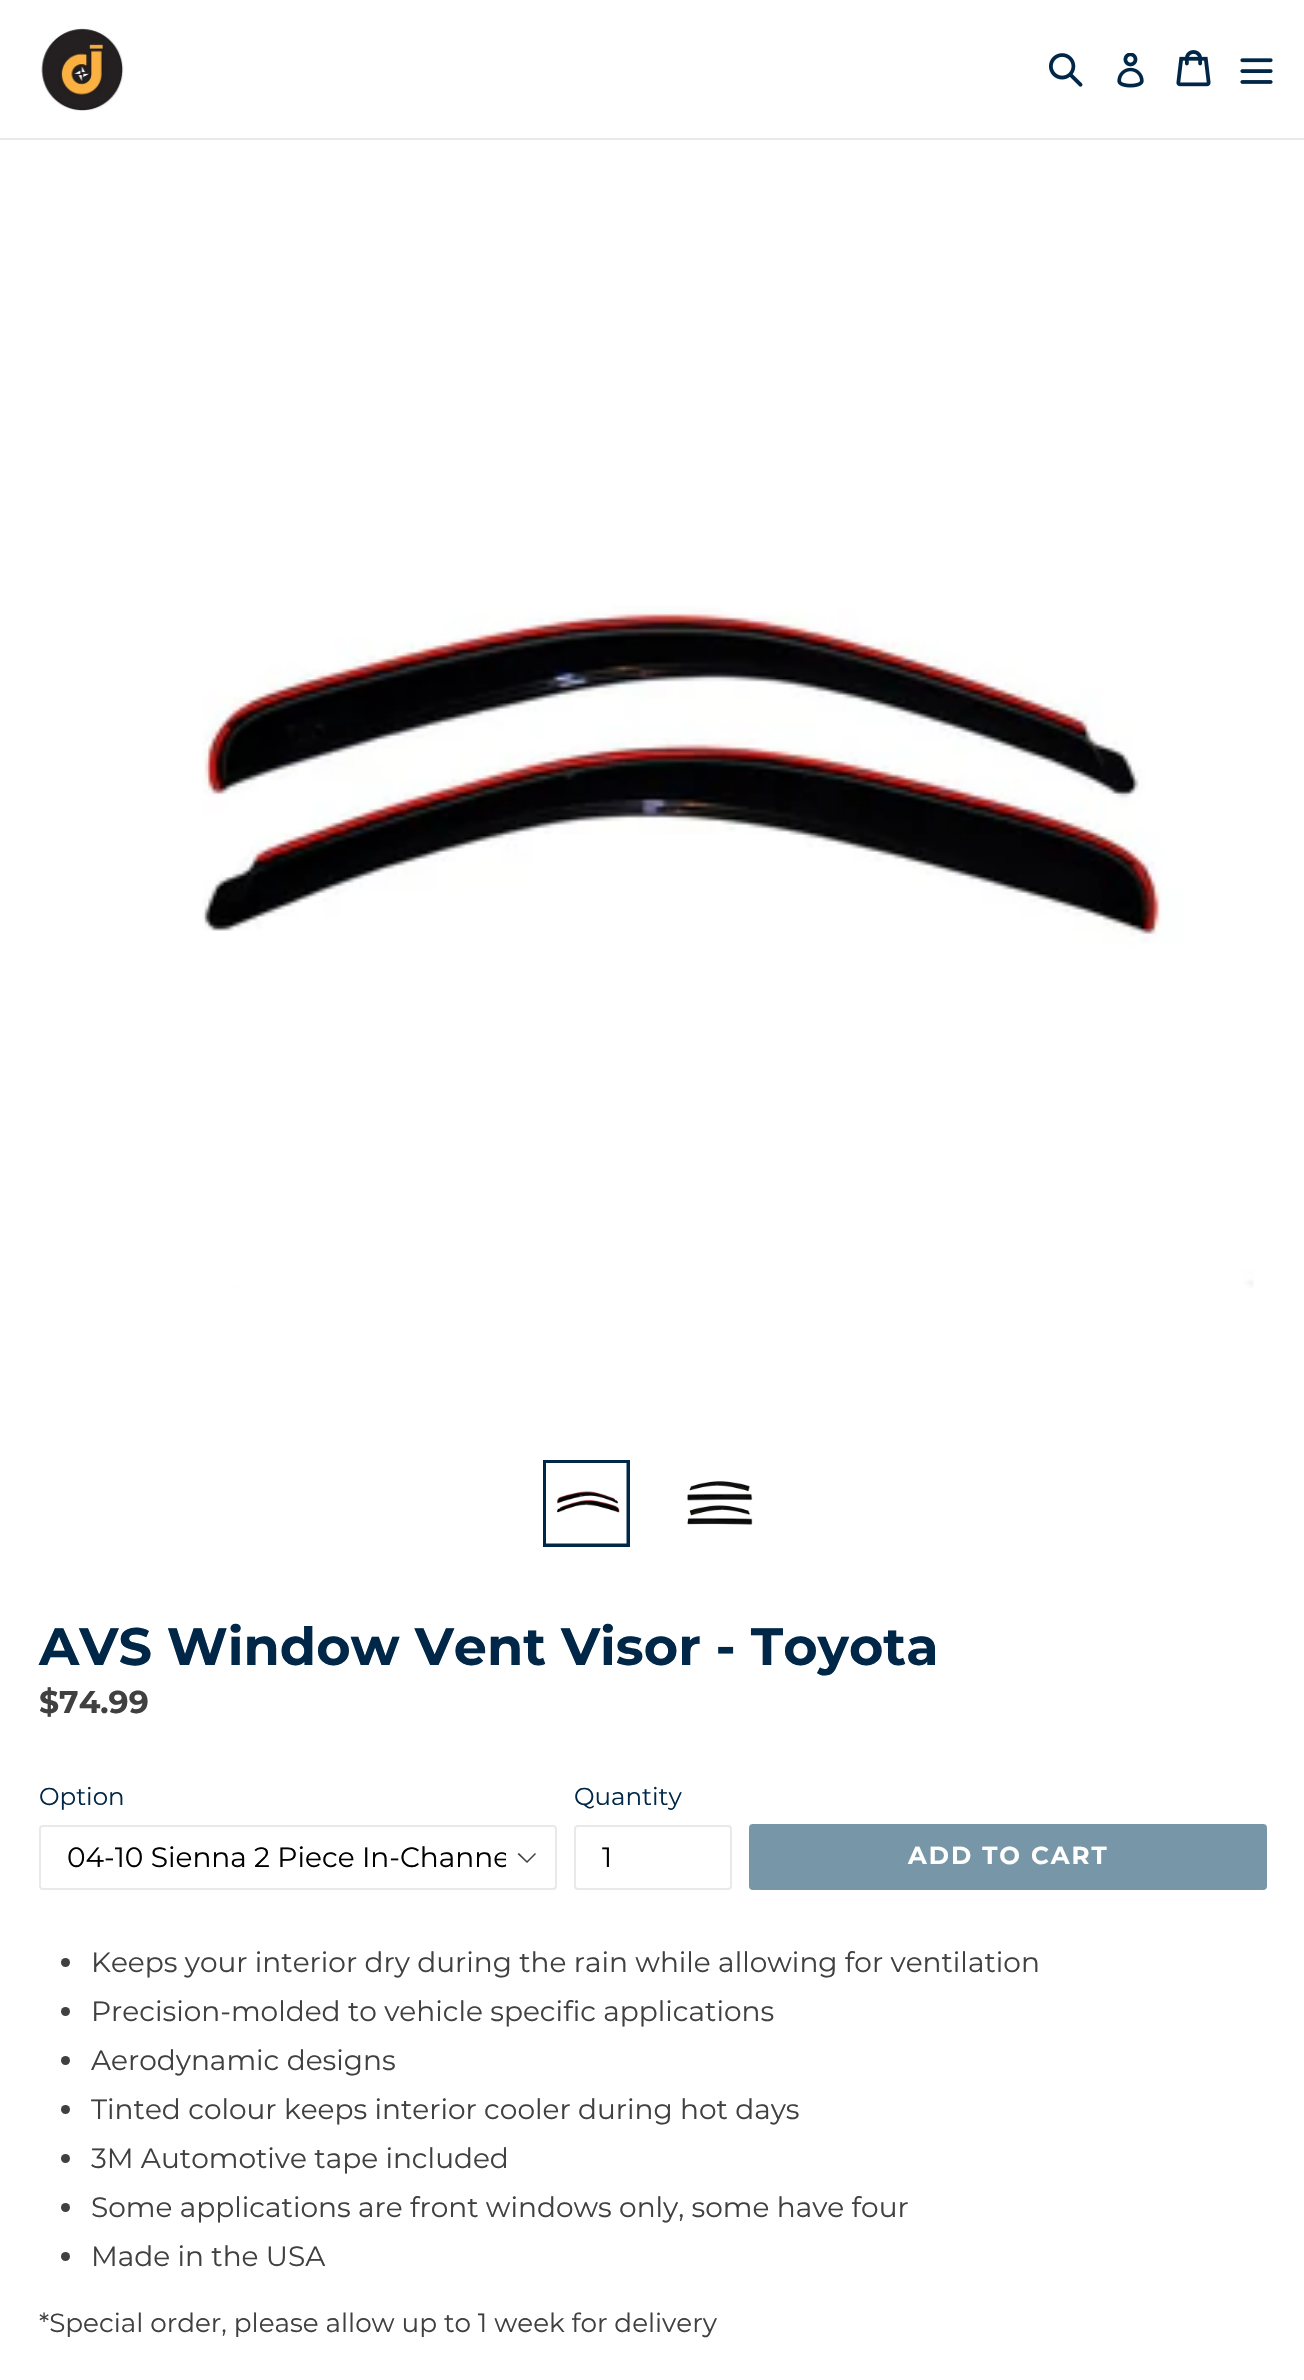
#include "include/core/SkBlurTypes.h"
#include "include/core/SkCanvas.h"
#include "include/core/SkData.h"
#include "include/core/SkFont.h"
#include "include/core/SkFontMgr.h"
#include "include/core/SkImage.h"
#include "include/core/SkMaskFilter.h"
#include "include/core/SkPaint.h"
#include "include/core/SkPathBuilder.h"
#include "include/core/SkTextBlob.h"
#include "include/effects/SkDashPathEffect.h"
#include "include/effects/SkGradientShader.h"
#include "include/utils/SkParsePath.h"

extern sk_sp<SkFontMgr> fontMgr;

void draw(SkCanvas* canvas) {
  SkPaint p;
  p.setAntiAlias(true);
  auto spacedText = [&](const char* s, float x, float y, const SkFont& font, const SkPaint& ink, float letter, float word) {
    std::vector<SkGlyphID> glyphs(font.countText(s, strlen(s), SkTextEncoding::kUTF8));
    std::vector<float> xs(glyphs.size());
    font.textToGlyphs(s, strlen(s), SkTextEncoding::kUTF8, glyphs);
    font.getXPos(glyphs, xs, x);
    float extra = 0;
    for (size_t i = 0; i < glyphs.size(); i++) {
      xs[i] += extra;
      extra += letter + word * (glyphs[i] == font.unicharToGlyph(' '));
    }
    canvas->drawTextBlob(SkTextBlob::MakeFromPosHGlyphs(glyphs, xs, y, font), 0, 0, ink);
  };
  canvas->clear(SK_ColorWHITE);
  p.setColor(SkColorSetRGB(232, 233, 235));
  canvas->drawRect(SkRect::MakeLTRB(0, 138, 1304, 140), p);
  canvas->drawImageRect(SkImages::DeferredFromEncodedData(SkData::MakeFromFileName("images/1.png")), SkRect::MakeLTRB(41, 28, 124, 111), SkSamplingOptions());
  canvas->drawImageRect(SkImages::DeferredFromEncodedData(SkData::MakeFromFileName("images/2.png")), SkRect::MakeLTRB(1049, 53, 1083, 87), SkSamplingOptions());
  canvas->drawImageRect(SkImages::DeferredFromEncodedData(SkData::MakeFromFileName("images/3.png")), SkRect::MakeLTRB(1117, 53, 1144, 88), SkSamplingOptions());
  canvas->drawImageRect(SkImages::DeferredFromEncodedData(SkData::MakeFromFileName("images/4.png")), SkRect::MakeLTRB(1176, 50, 1211, 87), SkSamplingOptions());
  canvas->drawImageRect(SkImages::DeferredFromEncodedData(SkData::MakeFromFileName("images/5.png")), SkRect::MakeLTRB(1240, 58, 1273, 84), SkSamplingOptions());
  canvas->drawImageRect(SkImages::DeferredFromEncodedData(SkData::MakeFromFileName("images/6.png")), SkRect::MakeLTRB(202, 605, 1254, 1288), SkSamplingOptions());
  p.setStyle(SkPaint::kStroke_Style);
  p.setStrokeWidth(4);
  p.setColor(SkColorSetRGB(0, 39, 71));
  canvas->drawRect(SkRect::MakeLTRB(545, 1462, 628, 1545), p);
  canvas->drawImageRect(SkImages::DeferredFromEncodedData(SkData::MakeFromFileName("images/7.png")), SkRect::MakeLTRB(546, 1463, 627, 1544), SkSamplingOptions());
  canvas->drawImageRect(SkImages::DeferredFromEncodedData(SkData::MakeFromFileName("images/8.png")), SkRect::MakeLTRB(687, 1481, 753, 1525), SkSamplingOptions());
  p.setStyle(SkPaint::kFill_Style);
  p.setColor(SkColorSetRGB(61, 66, 70));
  canvas->drawPath(SkPathBuilder().moveTo(527, 1863).lineTo(517.5f, 1854).lineTo(519, 1853).lineTo(527, 1861).lineTo(535, 1853).lineTo(536, 1854).close().detach(), p);
  p.setStyle(SkPaint::kStroke_Style);
  p.setStrokeWidth(2);
  p.setColor(SkColorSetRGB(232, 233, 235));
  canvas->drawRoundRect(SkRect::MakeLTRB(40, 1826, 556, 1889), 3, 3, p);
  canvas->drawRoundRect(SkRect::MakeLTRB(575, 1826, 731, 1889), 3, 3, p);
  p.setStyle(SkPaint::kFill_Style);
  p.setColor(SkColorSetRGB(119, 150, 168));
  canvas->drawRoundRect(SkRect::MakeLTRB(749, 1824, 1267, 1890), 4, 4, p);
  p.setColor(SkColorSetRGB(64, 64, 64));
  canvas->drawCircle(65.5f, 1962.5f, 4.5f, p);
  canvas->drawCircle(65.5f, 2011.5f, 4.5f, p);
  canvas->drawCircle(65.5f, 2060.5f, 4.5f, p);
  canvas->drawCircle(65.5f, 2109.5f, 4.5f, p);
  canvas->drawCircle(65.5f, 2158.5f, 4.5f, p);
  canvas->drawCircle(65.5f, 2207.5f, 4.5f, p);
  canvas->drawCircle(65.5f, 2256.5f, 4.5f, p);
  SkFont font1(fontMgr->matchFamilyStyle("Montserrat", SkFontStyle::Bold()), 52.5f);
  font1.setSubpixel(true);
  p.setColor(SkColorSetRGB(0, 39, 71));
  canvas->drawString("AVS Window Vent Visor - Toyota", 39, 1665, font1, p);
  SkFont font2(fontMgr->matchFamilyStyle("Montserrat", SkFontStyle::Bold()), 31.5f);
  font2.setSubpixel(true);
  p.setColor(SkColorSetRGB(64, 64, 64));
  canvas->drawString("$74.99", 39, 1713, font2, p);
  SkFont font3(fontMgr->matchFamilyStyle("Montserrat", SkFontStyle::Normal()), 24.5f);
  font3.setSubpixel(true);
  p.setColor(SkColorSetRGB(0, 39, 71));
  canvas->drawString("Option", 39, 1805, font3, p);
  canvas->save();
  canvas->clipRect(SkRect::MakeLTRB(67, 1841, 506, 1874));
  SkFont font4(fontMgr->matchFamilyStyle("Montserrat", SkFontStyle::Normal()), 28);
  font4.setSubpixel(true);
  p.setColor(SK_ColorBLACK);
  canvas->drawString("04-10 Sienna 2 Piece In-Channe", 67, 1867, font4, p);
  canvas->restore();
  p.setColor(SkColorSetRGB(0, 39, 71));
  canvas->drawString("Quantity", 574, 1805, font3, p);
  p.setColor(SK_ColorBLACK);
  canvas->drawString("1", 602, 1867, font4, p);
  SkFont font5(fontMgr->matchFamilyStyle("Montserrat", SkFontStyle::Bold()), 24.5f);
  font5.setSubpixel(true);
  p.setColor(SK_ColorWHITE);
  spacedText("ADD TO CART", 908, 1864, font5, p, 2, 0);
  p.setColor(SkColorSetRGB(64, 64, 64));
  canvas->drawString("Keeps your interior dry during the rain while allowing for ventilation", 91, 1972, font4, p);
  canvas->drawString("Precision-molded to vehicle specific applications", 91, 2021, font4, p);
  canvas->drawString("Aerodynamic designs", 91, 2070, font4, p);
  canvas->drawString("Tinted colour keeps interior cooler during hot days", 91, 2119, font4, p);
  canvas->drawString("3M Automotive tape included", 91, 2168, font4, p);
  canvas->drawString("Some applications are front windows only, some have four", 91, 2217, font4, p);
  canvas->drawString("Made in the USA", 91, 2266, font4, p);
  SkFont font6(fontMgr->matchFamilyStyle("Montserrat", SkFontStyle::Normal()), 26.25f);
  font6.setSubpixel(true);
  canvas->drawString("*Special order, please allow up to 1 week for delivery", 39, 2332, font6, p);
}
